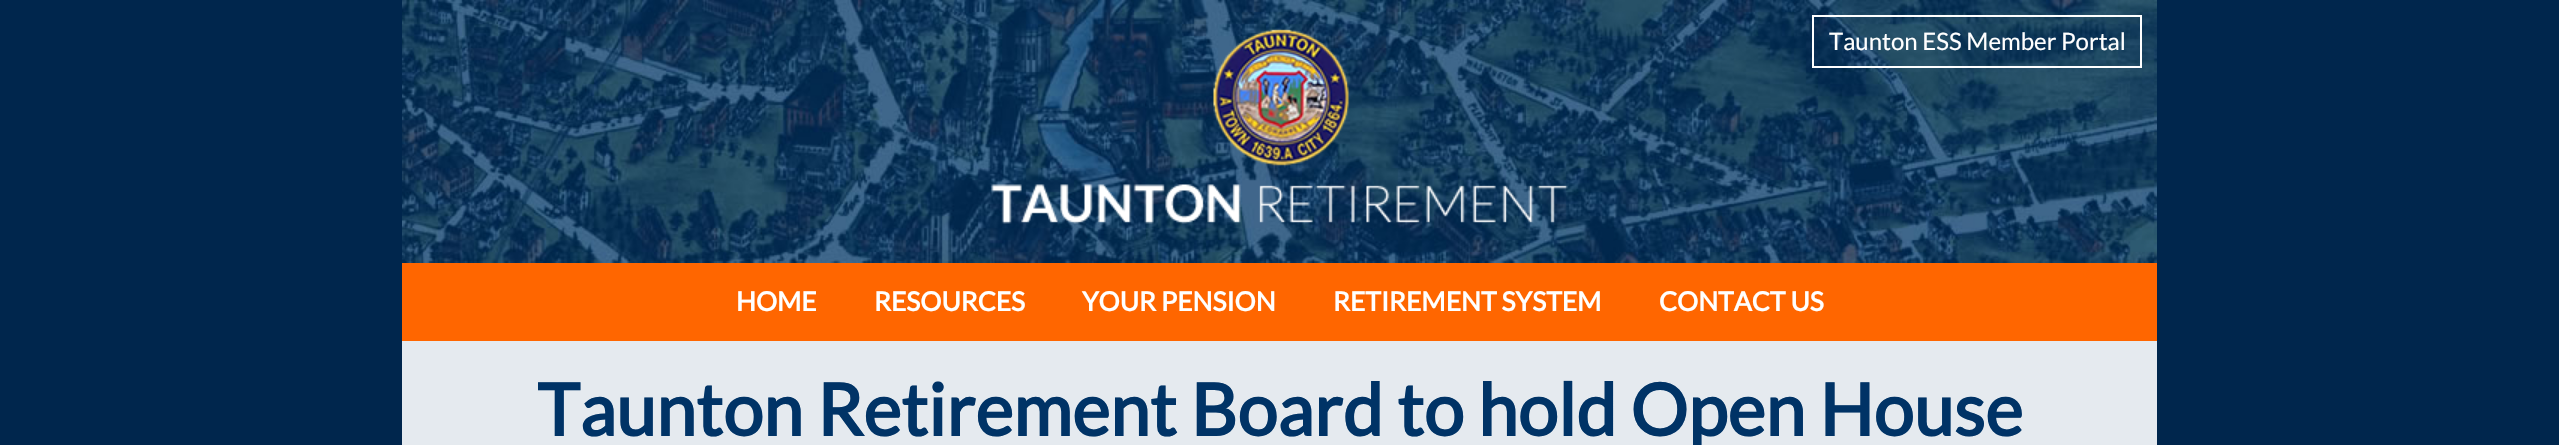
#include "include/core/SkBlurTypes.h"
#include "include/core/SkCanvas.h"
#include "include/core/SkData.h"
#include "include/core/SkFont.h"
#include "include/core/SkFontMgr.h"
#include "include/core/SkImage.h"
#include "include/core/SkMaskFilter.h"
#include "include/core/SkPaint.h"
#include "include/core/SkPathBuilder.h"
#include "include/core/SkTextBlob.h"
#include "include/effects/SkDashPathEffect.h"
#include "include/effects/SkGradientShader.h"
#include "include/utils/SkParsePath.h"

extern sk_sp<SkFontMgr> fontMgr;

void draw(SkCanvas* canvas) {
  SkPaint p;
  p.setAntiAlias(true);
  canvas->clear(SkColorSetRGB(0, 38, 77));
  canvas->drawImageRect(SkImages::DeferredFromEncodedData(SkData::MakeFromFileName("images/1.png")), SkRect::MakeLTRB(402, 0, 2157, 263), SkSamplingOptions());
  canvas->drawImageRect(SkImages::DeferredFromEncodedData(SkData::MakeFromFileName("images/2.png")), SkRect::MakeLTRB(991, 29, 1568, 224), SkSamplingOptions());
  p.setStyle(SkPaint::kStroke_Style);
  p.setStrokeWidth(2);
  p.setColor(SK_ColorWHITE);
  canvas->drawRect(SkRect::MakeLTRB(1813, 16, 2141, 67), p);
  p.setStyle(SkPaint::kFill_Style);
  p.setColor(SkColorSetRGB(255, 102, 0));
  canvas->drawRect(SkRect::MakeLTRB(402, 263, 2157, 341), p);
  p.setColor(SkColorSetRGB(229, 234, 239));
  canvas->drawRect(SkRect::MakeLTRB(402, 341, 2157, 445), p);
  SkFont font1(fontMgr->matchFamilyStyle("Lato", SkFontStyle::Normal()), 24);
  font1.setSubpixel(true);
  p.setColor(SK_ColorWHITE);
  canvas->drawString("Taunton ESS Member Portal", 1829, 50, font1, p);
  SkFont font2(fontMgr->matchFamilyStyle("Lato", SkFontStyle::Bold()), 26.4f);
  font2.setSubpixel(true);
  canvas->drawString("HOME", 736, 311, font2, p);
  canvas->drawString("RESOURCES", 874, 311, font2, p);
  canvas->drawString("YOUR PENSION", 1082, 311, font2, p);
  canvas->drawString("RETIREMENT SYSTEM", 1333, 311, font2, p);
  canvas->drawString("CONTACT US", 1659, 311, font2, p);
  SkFont font3(fontMgr->matchFamilyStyle("Lato", SkFontStyle::Bold()), 72);
  font3.setSubpixel(true);
  p.setColor(SkColorSetRGB(0, 51, 102));
  canvas->drawString("Taunton Retirement Board to hold Open House", 537, 436, font3, p);
}
